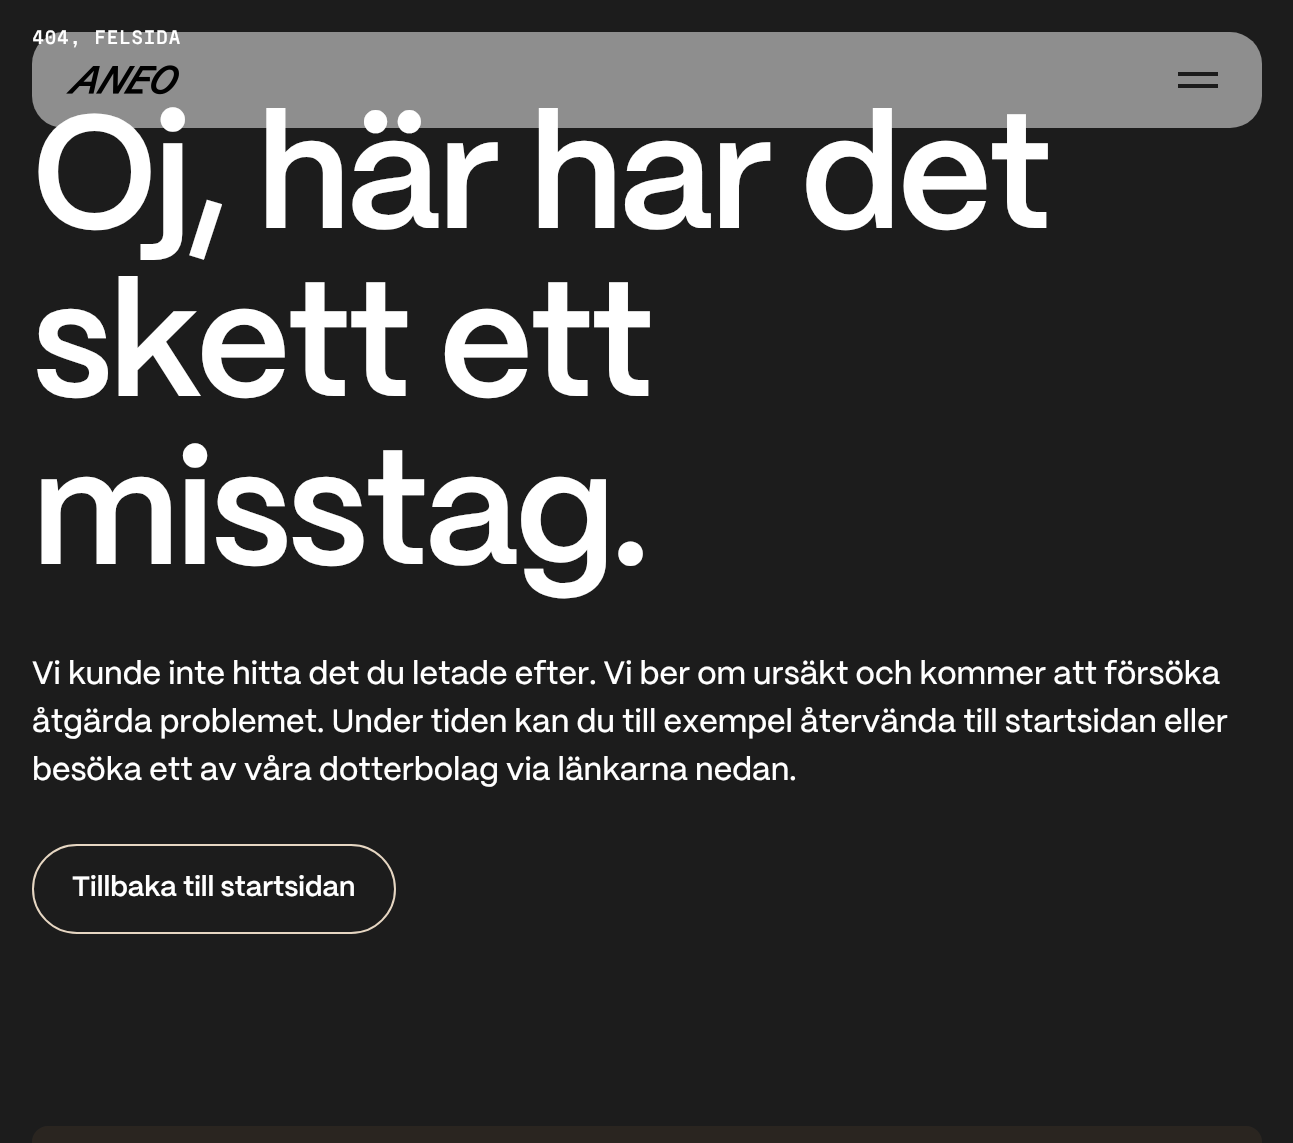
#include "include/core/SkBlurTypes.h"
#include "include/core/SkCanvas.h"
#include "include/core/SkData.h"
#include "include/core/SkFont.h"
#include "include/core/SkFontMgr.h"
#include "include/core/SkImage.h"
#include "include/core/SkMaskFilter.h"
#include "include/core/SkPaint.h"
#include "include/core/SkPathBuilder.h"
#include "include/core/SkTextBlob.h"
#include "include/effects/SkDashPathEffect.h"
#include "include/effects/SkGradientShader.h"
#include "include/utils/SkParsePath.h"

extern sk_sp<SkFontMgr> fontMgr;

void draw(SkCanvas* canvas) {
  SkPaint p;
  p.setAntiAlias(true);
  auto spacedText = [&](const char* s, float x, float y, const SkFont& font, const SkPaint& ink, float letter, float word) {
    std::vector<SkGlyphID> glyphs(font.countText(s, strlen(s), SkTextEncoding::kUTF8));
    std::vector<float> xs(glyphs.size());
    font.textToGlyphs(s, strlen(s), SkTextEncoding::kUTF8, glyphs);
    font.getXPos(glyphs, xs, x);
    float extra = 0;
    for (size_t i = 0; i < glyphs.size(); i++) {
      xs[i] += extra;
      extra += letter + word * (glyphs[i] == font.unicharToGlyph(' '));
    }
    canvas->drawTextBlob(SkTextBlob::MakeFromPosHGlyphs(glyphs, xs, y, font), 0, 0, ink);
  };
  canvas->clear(SkColorSetRGB(28, 28, 28));
  p.setStyle(SkPaint::kStroke_Style);
  p.setStrokeWidth(2);
  p.setColor(SkColorSetRGB(230, 214, 194));
  canvas->drawRoundRect(SkRect::MakeLTRB(33, 845, 395, 933), 44, 44, p);
  p.setStyle(SkPaint::kFill_Style);
  p.setColor(SkColorSetRGB(42, 37, 32));
  canvas->drawRoundRect(SkRect::MakeLTRB(33, 1127, 1261, 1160), 15, 15, p);
  p.setStyle(SkPaint::kStroke_Style);
  canvas->drawRoundRect(SkRect::MakeLTRB(33, 1127, 1261, 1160), 15, 15, p);
  SkFont font1(fontMgr->matchFamilyStyle("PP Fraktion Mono", SkFontStyle::Bold()), 20);
  font1.setSubpixel(true);
  p.setStyle(SkPaint::kFill_Style);
  p.setColor(SK_ColorWHITE);
  spacedText("404, FELSIDA", 32, 44, font1, p, 0.4f, 0);
  SkFont font2(fontMgr->matchFamilyStyle("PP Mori", SkFontStyle(600, SkFontStyle::kNormal_Width, SkFontStyle::kUpright_Slant)), 160);
  font2.setSubpixel(true);
  spacedText("Oj, här har det", 32, 228, font2, p, -3.25f, 0);
  spacedText("skett ett", 32, 396, font2, p, -3.25f, 0);
  spacedText("misstag.", 32, 564, font2, p, -3.25f, 0);
  SkFont font3(fontMgr->matchFamilyStyle("PP Mori", SkFontStyle(500, SkFontStyle::kNormal_Width, SkFontStyle::kUpright_Slant)), 32);
  font3.setSubpixel(true);
  canvas->drawString("Vi kunde inte hitta det du letade efter. Vi ber om ursäkt och kommer att försöka", 32, 684, font3, p);
  canvas->drawString("åtgärda problemet. Under tiden kan du till exempel återvända till startsidan eller", 32, 732, font3, p);
  canvas->drawString("besöka ett av våra dotterbolag via länkarna nedan.", 32, 780, font3, p);
  SkFont font4(fontMgr->matchFamilyStyle("PP Mori", SkFontStyle(600, SkFontStyle::kNormal_Width, SkFontStyle::kUpright_Slant)), 28);
  font4.setSubpixel(true);
  canvas->drawString("Tillbaka till startsidan", 72, 896, font4, p);
  p.setColor(SkColorSetARGB(128, 255, 255, 255));
  canvas->drawRoundRect(SkRect::MakeLTRB(32, 32, 1262, 128), 32, 32, p);
  canvas->drawImageRect(SkImages::DeferredFromEncodedData(SkData::MakeFromFileName("images/1.png")), SkRect::MakeLTRB(66, 65, 179, 95), SkSamplingOptions());
  p.setColor(SkColorSetRGB(28, 28, 28));
  canvas->drawRect(SkRect::MakeLTRB(1178, 72, 1218, 76), p);
  canvas->drawRect(SkRect::MakeLTRB(1178, 84, 1218, 88), p);
}
